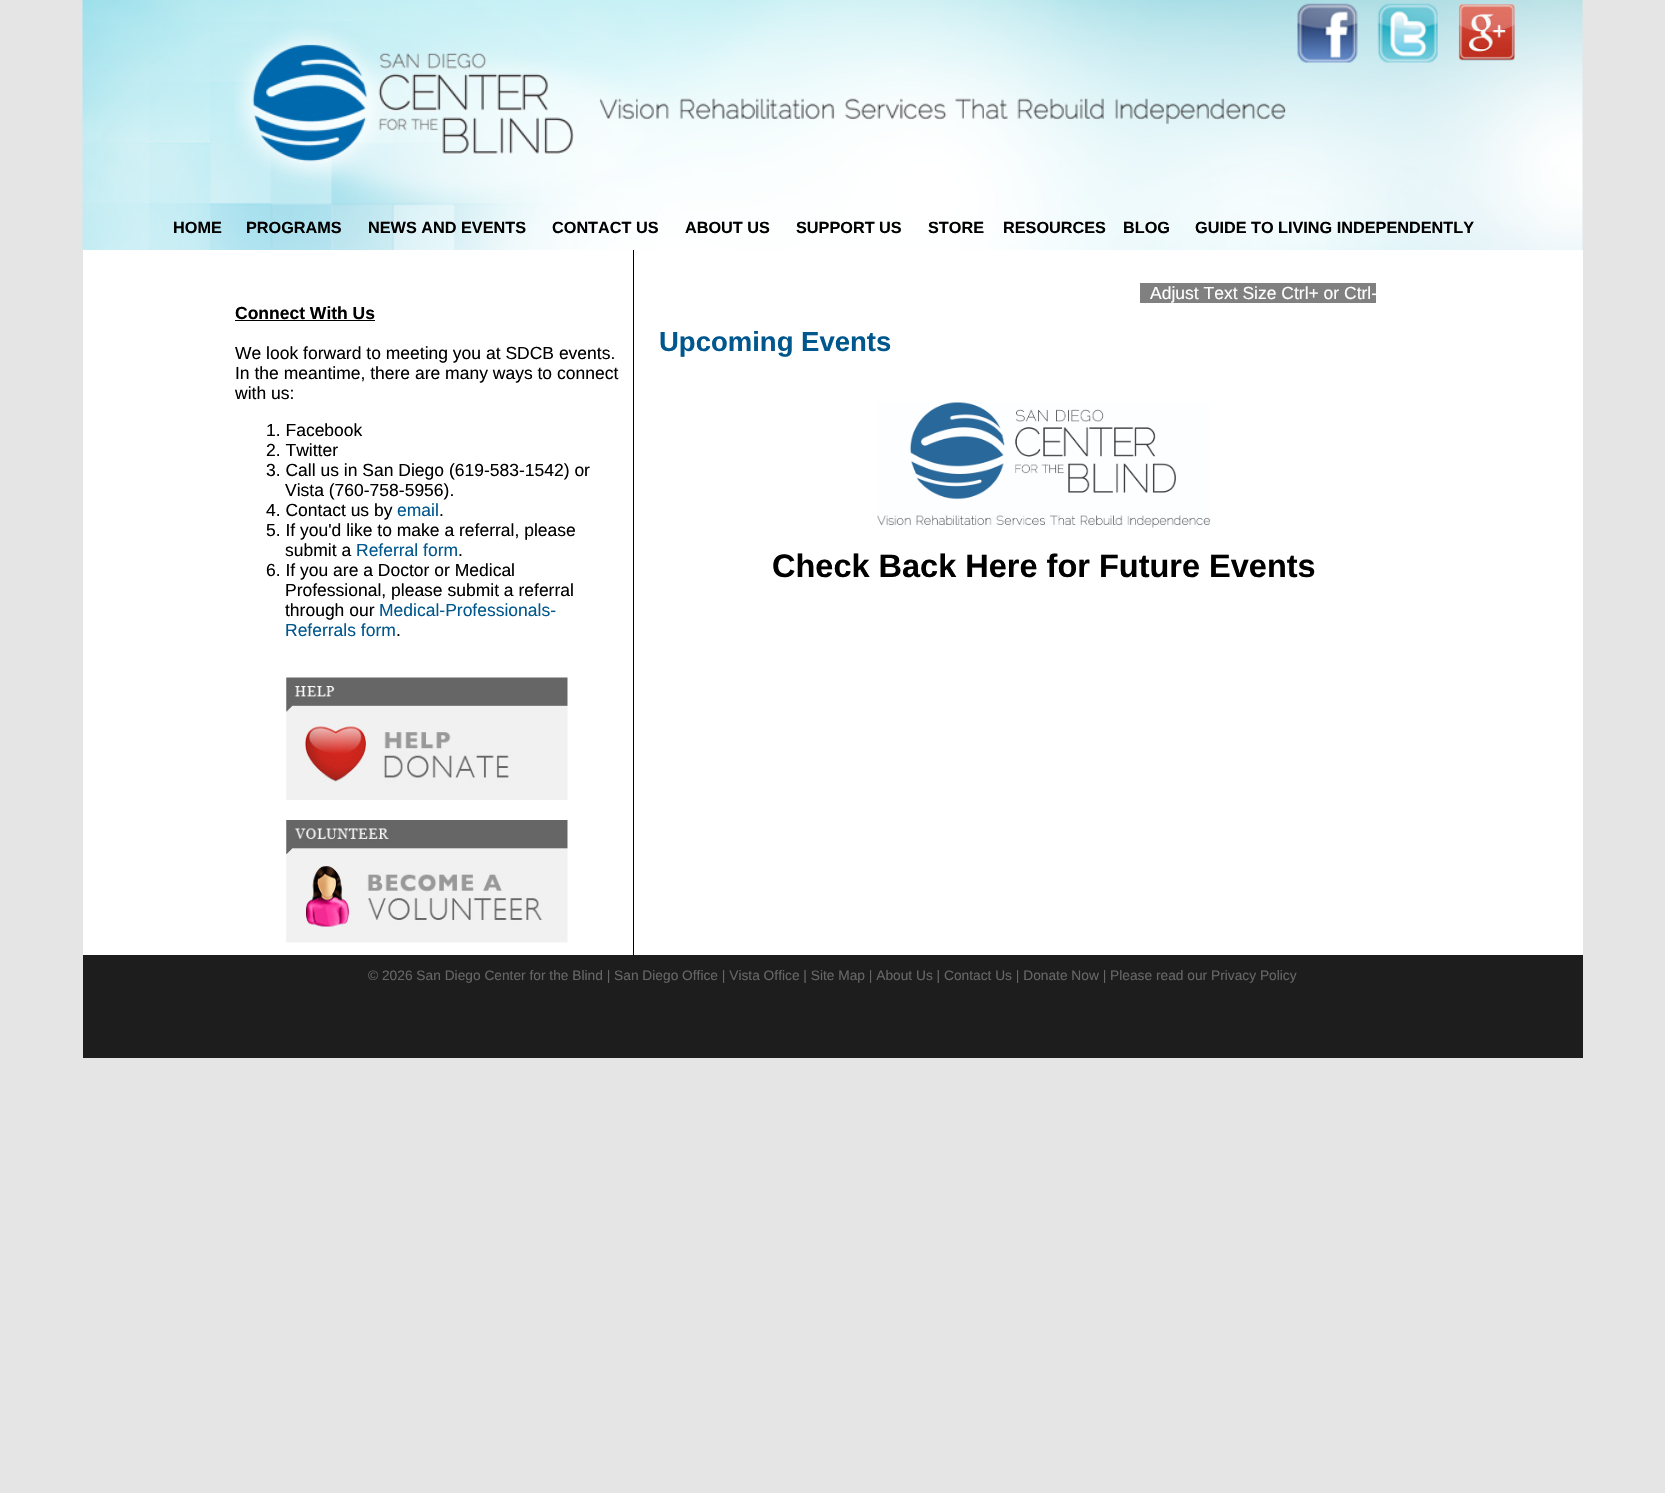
#include "include/core/SkBlurTypes.h"
#include "include/core/SkCanvas.h"
#include "include/core/SkData.h"
#include "include/core/SkFont.h"
#include "include/core/SkFontMgr.h"
#include "include/core/SkImage.h"
#include "include/core/SkMaskFilter.h"
#include "include/core/SkPaint.h"
#include "include/core/SkPathBuilder.h"
#include "include/core/SkTextBlob.h"
#include "include/effects/SkDashPathEffect.h"
#include "include/effects/SkGradientShader.h"
#include "include/utils/SkParsePath.h"

extern sk_sp<SkFontMgr> fontMgr;

void draw(SkCanvas* canvas) {
  SkPaint p;
  p.setAntiAlias(true);
  canvas->clear(SkColorSetRGB(229, 229, 229));
  canvas->drawImageRect(SkImages::DeferredFromEncodedData(SkData::MakeFromFileName("images/1.png")), SkRect::MakeLTRB(82, 0, 1583, 250), SkSamplingOptions());
  canvas->drawImageRect(SkImages::DeferredFromEncodedData(SkData::MakeFromFileName("images/2.png")), SkRect::MakeLTRB(235, 28, 1286, 201), SkSamplingOptions());
  canvas->drawImageRect(SkImages::DeferredFromEncodedData(SkData::MakeFromFileName("images/3.png")), SkRect::MakeLTRB(1297, 3, 1358, 63), SkSamplingOptions());
  canvas->drawImageRect(SkImages::DeferredFromEncodedData(SkData::MakeFromFileName("images/4.png")), SkRect::MakeLTRB(1377, 3, 1438, 63), SkSamplingOptions());
  canvas->drawImageRect(SkImages::DeferredFromEncodedData(SkData::MakeFromFileName("images/5.png")), SkRect::MakeLTRB(1458, 4, 1515, 61), SkSamplingOptions());
  p.setColor(SK_ColorWHITE);
  canvas->drawRect(SkRect::MakeLTRB(83, 250, 633, 955), p);
  p.setColor(SK_ColorBLACK);
  canvas->drawRect(SkRect::MakeLTRB(235, 320, 375, 321), p);
  canvas->drawImageRect(SkImages::DeferredFromEncodedData(SkData::MakeFromFileName("images/6.png")), SkRect::MakeLTRB(286, 677, 568, 800), SkSamplingOptions());
  canvas->drawImageRect(SkImages::DeferredFromEncodedData(SkData::MakeFromFileName("images/7.png")), SkRect::MakeLTRB(286, 820, 568, 943), SkSamplingOptions());
  p.setColor(SK_ColorWHITE);
  canvas->drawRect(SkRect::MakeLTRB(634, 250, 1583, 955), p);
  p.setColor(SK_ColorBLACK);
  canvas->drawRect(SkRect::MakeLTRB(633, 250, 634, 955), p);
  p.setColor(SkColorSetRGB(128, 128, 128));
  canvas->drawRect(SkRect::MakeLTRB(1140, 283, 1376, 303), p);
  canvas->drawImageRect(SkImages::DeferredFromEncodedData(SkData::MakeFromFileName("images/8.png")), SkRect::MakeLTRB(877, 402, 1210, 528), SkSamplingOptions());
  p.setColor(SkColorSetRGB(29, 29, 29));
  canvas->drawRect(SkRect::MakeLTRB(83, 955, 1583, 1058), p);
  SkFont font1(fontMgr->matchFamilyStyle("Liberation Sans", SkFontStyle::Bold()), 16.25f);
  font1.setSubpixel(true);
  p.setColor(SK_ColorBLACK);
  canvas->drawString("HOME", 173, 233, font1, p);
  canvas->drawString("PROGRAMS", 246, 233, font1, p);
  canvas->drawString("NEWS AND EVENTS", 368, 233, font1, p);
  canvas->drawString("CONTACT US", 552, 233, font1, p);
  canvas->drawString("ABOUT US", 685, 233, font1, p);
  canvas->drawString("SUPPORT US", 796, 233, font1, p);
  canvas->drawString("STORE", 928, 233, font1, p);
  canvas->drawString("RESOURCES", 1003, 233, font1, p);
  canvas->drawString("BLOG", 1123, 233, font1, p);
  canvas->drawString("GUIDE TO LIVING INDEPENDENTLY", 1195, 233, font1, p);
  SkFont font2(fontMgr->matchFamilyStyle("Liberation Sans", SkFontStyle::Bold()), 17.5f);
  font2.setSubpixel(true);
  canvas->drawString("Connect With Us", 235, 319, font2, p);
  SkFont font3(fontMgr->matchFamilyStyle("Liberation Sans", SkFontStyle::Normal()), 17.5f);
  font3.setSubpixel(true);
  canvas->drawString("We look forward to meeting you at SDCB events.", 235, 359, font3, p);
  canvas->drawString("In the meantime, there are many ways to connect", 235, 379, font3, p);
  canvas->drawString("with us:", 235, 399, font3, p);
  canvas->drawString("1. Facebook", 266, 436, font3, p);
  canvas->drawString("2. Twitter", 266, 456, font3, p);
  canvas->drawString("3. Call us in San Diego (619-583-1542) or", 266, 476, font3, p);
  canvas->drawString("Vista (760-758-5956).", 285, 496, font3, p);
  canvas->drawString("4. Contact us by", 266, 516, font3, p);
  p.setColor(SkColorSetRGB(0, 87, 141));
  canvas->drawString("email", 397, 516, font3, p);
  p.setColor(SK_ColorBLACK);
  canvas->drawString(".", 439, 516, font3, p);
  canvas->drawString("5. If you'd like to make a referral, please", 266, 536, font3, p);
  canvas->drawString("submit a", 285, 556, font3, p);
  p.setColor(SkColorSetRGB(0, 87, 141));
  canvas->drawString("Referral form", 356, 556, font3, p);
  p.setColor(SK_ColorBLACK);
  canvas->drawString(".", 458, 556, font3, p);
  canvas->drawString("6. If you are a Doctor or Medical", 266, 576, font3, p);
  canvas->drawString("Professional, please submit a referral", 285, 596, font3, p);
  canvas->drawString("through our", 285, 616, font3, p);
  p.setColor(SkColorSetRGB(0, 87, 141));
  canvas->drawString("Medical-Professionals-", 379, 616, font3, p);
  canvas->drawString("Referrals form", 285, 636, font3, p);
  p.setColor(SK_ColorBLACK);
  canvas->drawString(".", 396, 636, font3, p);
  p.setColor(SK_ColorWHITE);
  canvas->drawString("Adjust Text Size Ctrl+ or Ctrl-", 1150, 299, font3, p);
  SkFont font4(fontMgr->matchFamilyStyle("Liberation Sans", SkFontStyle::Bold()), 27.5f);
  font4.setSubpixel(true);
  p.setColor(SkColorSetRGB(0, 87, 141));
  canvas->drawString("Upcoming Events", 659, 351, font4, p);
  SkFont font5(fontMgr->matchFamilyStyle("Liberation Sans", SkFontStyle::Bold()), 32.5f);
  font5.setSubpixel(true);
  p.setColor(SK_ColorBLACK);
  canvas->drawString("Check Back Here for Future Events", 772, 577, font5, p);
  SkFont font6(fontMgr->matchFamilyStyle("Liberation Sans", SkFontStyle::Normal()), 13.75f);
  font6.setSubpixel(true);
  p.setColor(SkColorSetRGB(102, 102, 102));
  canvas->drawString("© 2026 San Diego Center for the Blind | San Diego Office | Vista Office | Site Map | About Us | Contact Us | Donate Now | Please read our Privacy Policy", 368, 980, font6, p);
}
